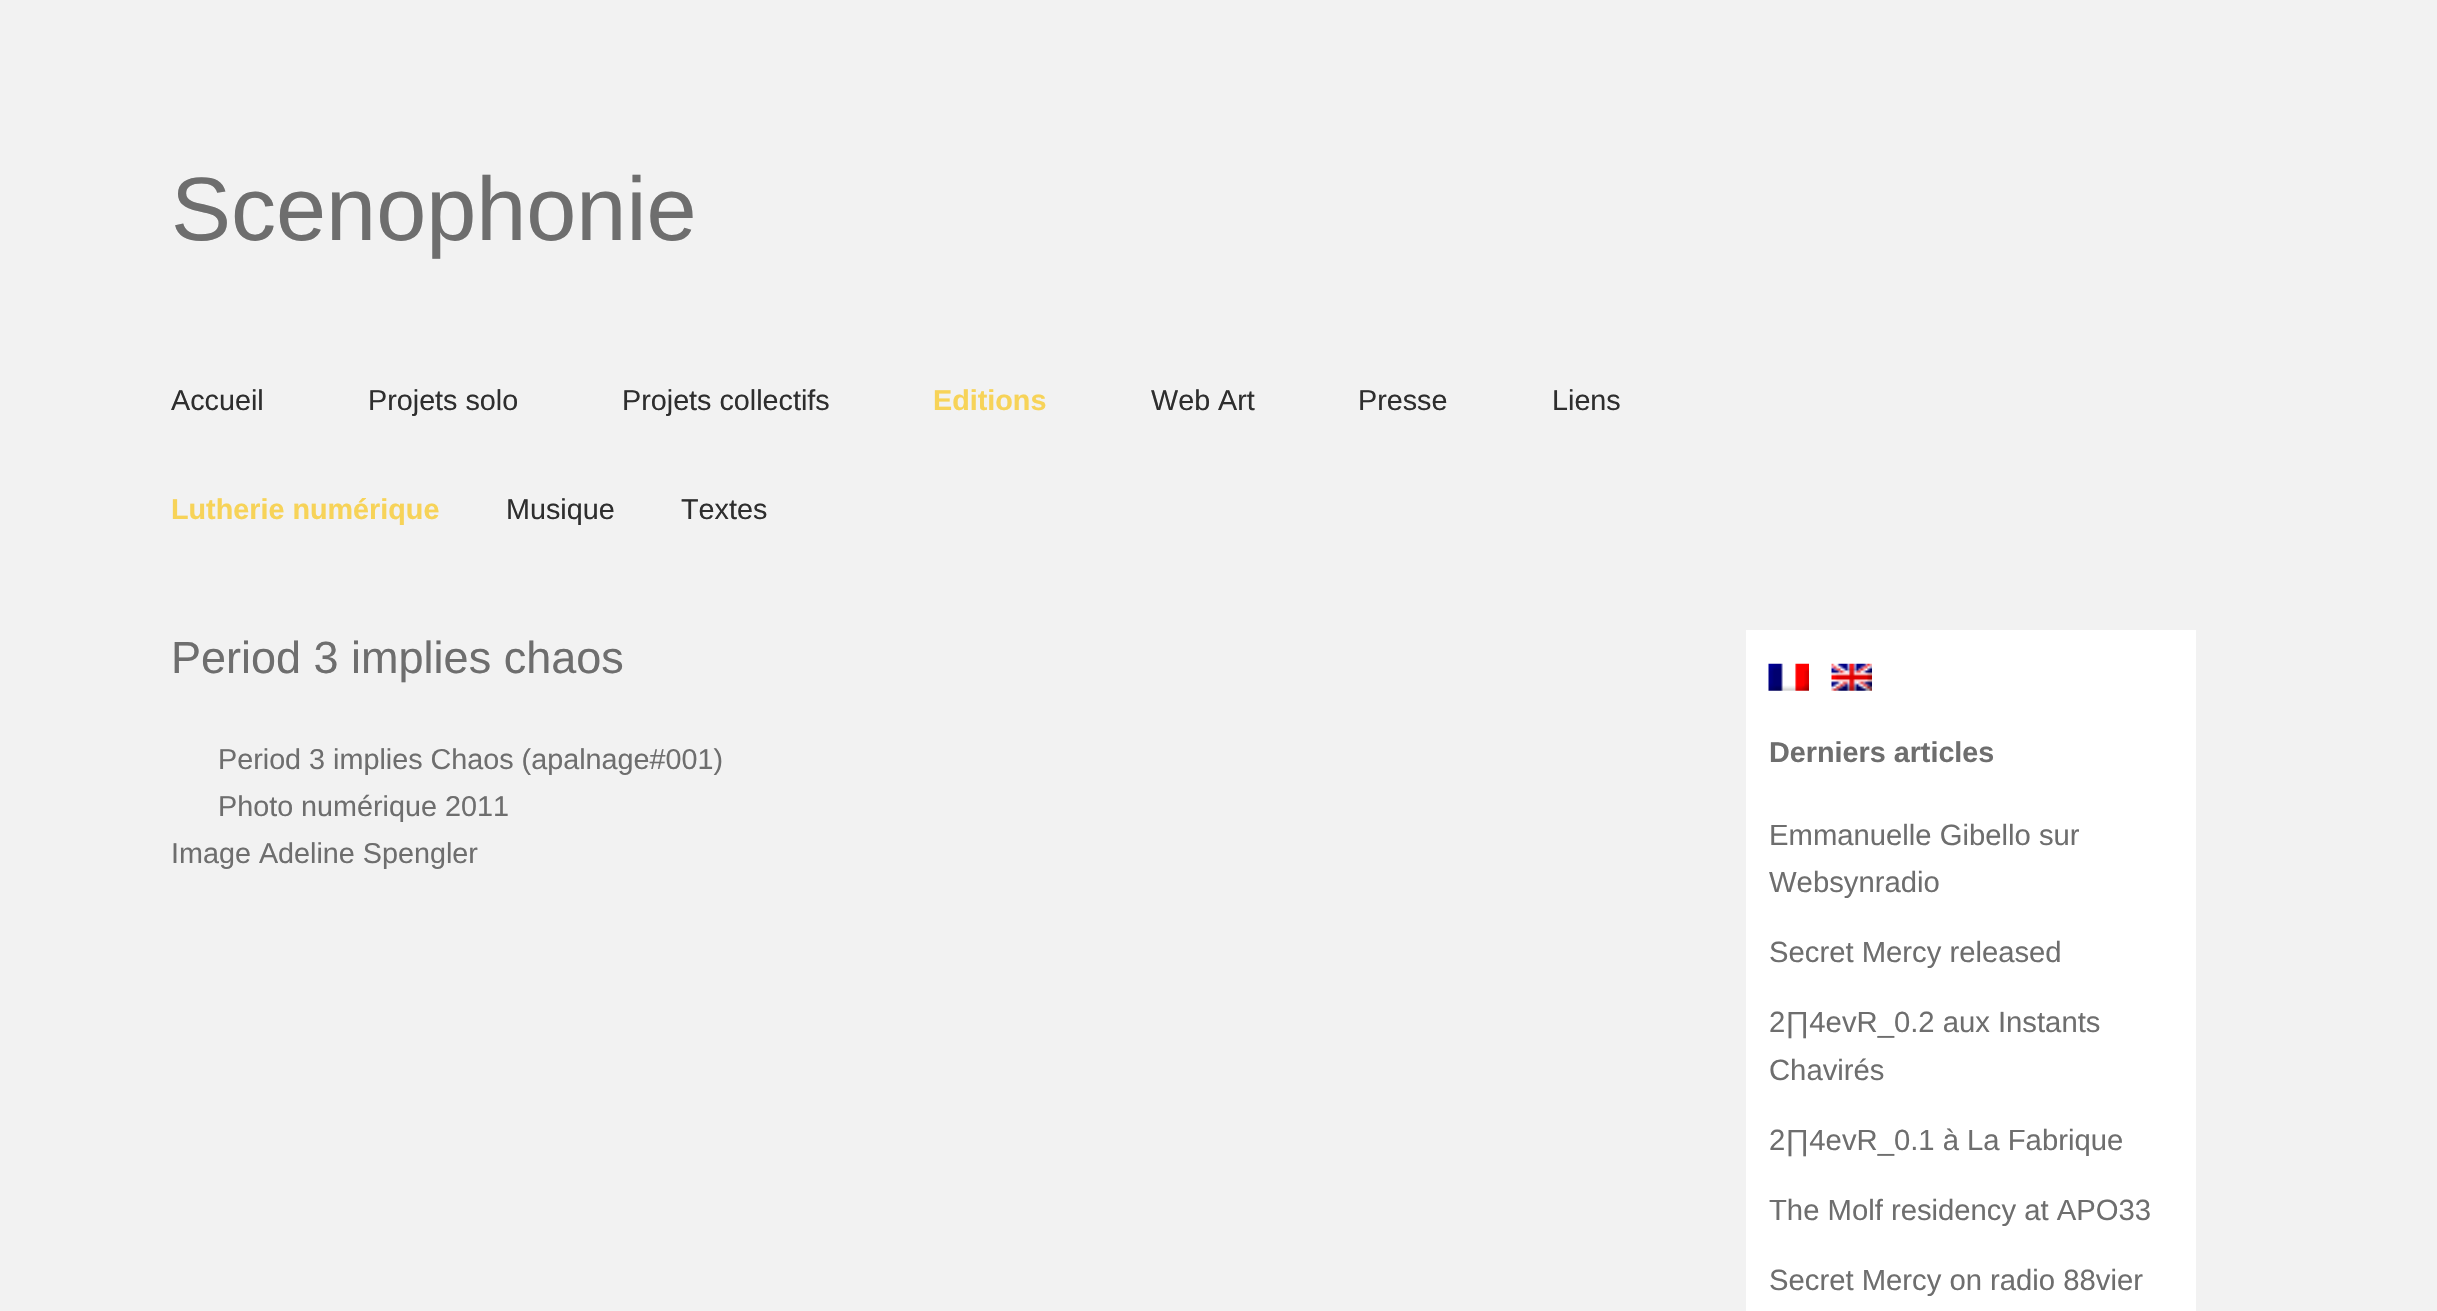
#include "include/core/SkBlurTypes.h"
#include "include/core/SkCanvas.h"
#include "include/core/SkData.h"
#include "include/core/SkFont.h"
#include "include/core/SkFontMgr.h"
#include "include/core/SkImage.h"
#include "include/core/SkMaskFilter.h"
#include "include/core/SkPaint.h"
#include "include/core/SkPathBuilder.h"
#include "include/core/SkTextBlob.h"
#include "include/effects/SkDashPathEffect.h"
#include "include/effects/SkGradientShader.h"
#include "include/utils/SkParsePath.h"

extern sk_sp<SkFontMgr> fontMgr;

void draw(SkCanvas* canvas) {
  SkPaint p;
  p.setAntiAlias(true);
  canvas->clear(SkColorSetRGB(242, 242, 242));
  p.setColor(SK_ColorWHITE);
  canvas->drawRect(SkRect::MakeLTRB(1746, 630, 2196, 1311), p);
  canvas->drawImageRect(SkImages::DeferredFromEncodedData(SkData::MakeFromFileName("images/1.png")), SkRect::MakeLTRB(1768, 663, 1809, 691), SkSamplingOptions());
  canvas->drawImageRect(SkImages::DeferredFromEncodedData(SkData::MakeFromFileName("images/2.png")), SkRect::MakeLTRB(1831, 663, 1872, 691), SkSamplingOptions());
  SkFont font1(fontMgr->matchFamilyStyle("Liberation Sans", SkFontStyle::Normal()), 90);
  font1.setSubpixel(true);
  p.setColor(SkColorSetRGB(110, 110, 110));
  canvas->drawString("Scenophonie", 171, 240, font1, p);
  SkFont font2(fontMgr->matchFamilyStyle("Liberation Sans", SkFontStyle::Normal()), 28.75f);
  font2.setSubpixel(true);
  p.setColor(SkColorSetRGB(46, 46, 46));
  canvas->drawString("Accueil", 171, 410, font2, p);
  canvas->drawString("Projets solo", 368, 410, font2, p);
  canvas->drawString("Projets collectifs", 622, 410, font2, p);
  SkFont font3(fontMgr->matchFamilyStyle("Liberation Sans", SkFontStyle::Bold()), 28.75f);
  font3.setSubpixel(true);
  p.setColor(SkColorSetRGB(247, 211, 88));
  canvas->drawString("Editions", 933, 410, font3, p);
  p.setColor(SkColorSetRGB(46, 46, 46));
  canvas->drawString("Web Art", 1151, 410, font2, p);
  canvas->drawString("Presse", 1358, 410, font2, p);
  canvas->drawString("Liens", 1552, 410, font2, p);
  p.setColor(SkColorSetRGB(247, 211, 88));
  canvas->drawString("Lutherie numérique", 171, 519, font3, p);
  p.setColor(SkColorSetRGB(46, 46, 46));
  canvas->drawString("Musique", 506, 519, font2, p);
  canvas->drawString("Textes", 681, 519, font2, p);
  SkFont font4(fontMgr->matchFamilyStyle("Liberation Sans", SkFontStyle::Normal()), 45);
  font4.setSubpixel(true);
  p.setColor(SkColorSetRGB(110, 110, 110));
  canvas->drawString("Period 3 implies chaos", 171, 673, font4, p);
  canvas->drawString("Period 3 implies Chaos (apalnage#001)", 218, 769, font2, p);
  canvas->drawString("Photo numérique 2011", 218, 816, font2, p);
  canvas->drawString("Image Adeline Spengler", 171, 863, font2, p);
  canvas->drawString("Derniers articles", 1769, 762, font3, p);
  SkFont font5(fontMgr->matchFamilyStyle("Liberation Sans", SkFontStyle::Normal()), 29.25f);
  font5.setSubpixel(true);
  canvas->drawString("Emmanuelle Gibello sur", 1769, 845, font5, p);
  canvas->drawString("Websynradio", 1769, 892, font5, p);
  canvas->drawString("Secret Mercy released", 1769, 962, font5, p);
  canvas->drawString("2∏4evR_0.2 aux Instants", 1769, 1032, font5, p);
  canvas->drawString("Chavirés", 1769, 1080, font5, p);
  canvas->drawString("2∏4evR_0.1 à La Fabrique", 1769, 1150, font5, p);
  canvas->drawString("The Molf residency at APO33", 1769, 1220, font5, p);
  canvas->drawString("Secret Mercy on radio 88vier", 1769, 1290, font5, p);
}
